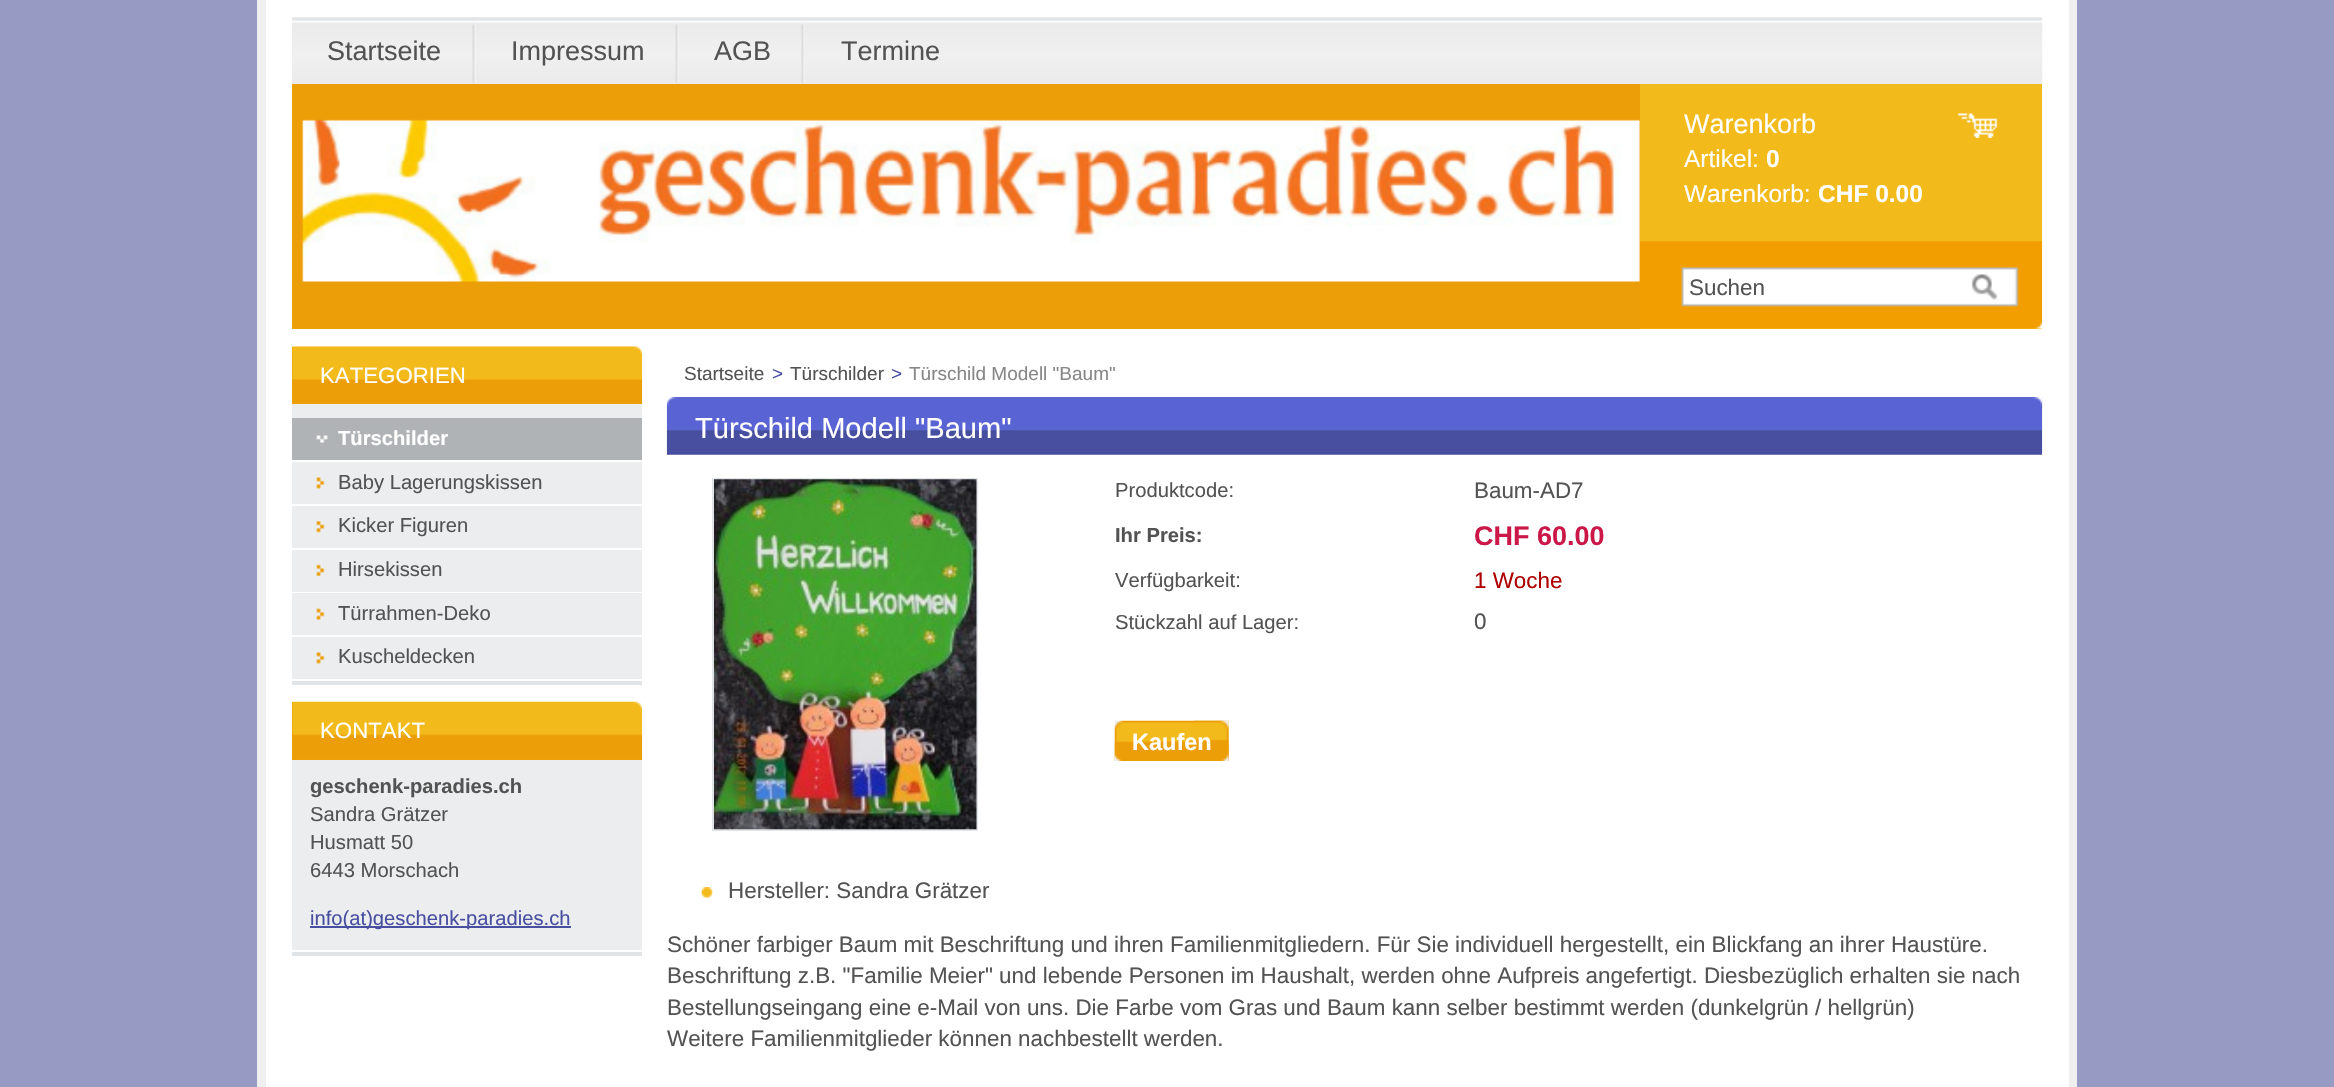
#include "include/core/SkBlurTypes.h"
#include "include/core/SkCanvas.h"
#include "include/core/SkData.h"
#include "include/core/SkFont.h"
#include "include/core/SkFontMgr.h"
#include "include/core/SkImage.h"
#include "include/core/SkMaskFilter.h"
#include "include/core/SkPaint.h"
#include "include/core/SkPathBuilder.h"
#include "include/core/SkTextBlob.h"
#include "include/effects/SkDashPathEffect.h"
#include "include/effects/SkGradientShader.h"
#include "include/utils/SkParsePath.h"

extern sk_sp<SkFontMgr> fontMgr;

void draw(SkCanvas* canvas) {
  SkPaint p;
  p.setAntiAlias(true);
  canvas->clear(SkColorSetRGB(151, 154, 194));
  p.setColor(SK_ColorWHITE);
  canvas->drawRect(SkRect::MakeLTRB(266, 0, 2069, 1087), p);
  p.setColor(SkColorSetRGB(239, 239, 239));
  canvas->drawRect(SkRect::MakeLTRB(2069, 0, 2077, 1087), p);
  canvas->drawRect(SkRect::MakeLTRB(257, 0, 266, 1087), p);
  p.setColor(SkColorSetRGB(236, 236, 236));
  canvas->drawRect(SkRect::MakeLTRB(292, 18, 2042, 84), p);
  canvas->drawImageRect(SkImages::DeferredFromEncodedData(SkData::MakeFromFileName("images/1.png")), SkRect::MakeLTRB(292, 17, 2043, 83), SkSamplingOptions());
  canvas->drawImageRect(SkImages::DeferredFromEncodedData(SkData::MakeFromFileName("images/2.png")), SkRect::MakeLTRB(472, 17, 476, 84), SkSamplingOptions());
  canvas->drawImageRect(SkImages::DeferredFromEncodedData(SkData::MakeFromFileName("images/2.png")), SkRect::MakeLTRB(675, 17, 679, 84), SkSamplingOptions());
  canvas->drawImageRect(SkImages::DeferredFromEncodedData(SkData::MakeFromFileName("images/2.png")), SkRect::MakeLTRB(801, 17, 805, 84), SkSamplingOptions());
  p.setColor(SkColorSetRGB(236, 158, 8));
  canvas->drawRect(SkRect::MakeLTRB(292, 84, 1640, 329), p);
  canvas->drawImageRect(SkImages::DeferredFromEncodedData(SkData::MakeFromFileName("images/3.png")), SkRect::MakeLTRB(302, 119, 1640, 282), SkSamplingOptions());
  p.setColor(SkColorSetRGB(243, 186, 27));
  canvas->drawRect(SkRect::MakeLTRB(1640, 84, 2042, 242), p);
  canvas->drawImageRect(SkImages::DeferredFromEncodedData(SkData::MakeFromFileName("images/4.png")), SkRect::MakeLTRB(1958, 113, 1998, 138), SkSamplingOptions());
  canvas->drawRect(SkRect::MakeLTRB(1640, 328, 2042, 329), p);
  canvas->drawImageRect(SkImages::DeferredFromEncodedData(SkData::MakeFromFileName("images/5.png")), SkRect::MakeLTRB(1640, 241, 2043, 329), SkSamplingOptions());
  canvas->drawImageRect(SkImages::DeferredFromEncodedData(SkData::MakeFromFileName("images/6.png")), SkRect::MakeLTRB(1971, 274, 2003, 300), SkSamplingOptions());
  p.setColor(SkColorSetRGB(226, 229, 232));
  canvas->drawRect(SkRect::MakeLTRB(292, 681, 642, 685), p);
  p.setColor(SkColorSetRGB(235, 237, 239));
  canvas->drawRect(SkRect::MakeLTRB(292, 404, 642, 679), p);
  p.setColor(SkColorSetRGB(236, 158, 8));
  canvas->drawRect(SkRect::MakeLTRB(292, 347, 293, 404), p);
  canvas->drawImageRect(SkImages::DeferredFromEncodedData(SkData::MakeFromFileName("images/7.png")), SkRect::MakeLTRB(292, 346, 643, 404), SkSamplingOptions());
  p.setColor(SkColorSetRGB(176, 179, 181));
  canvas->drawRect(SkRect::MakeLTRB(292, 418, 642, 460), p);
  canvas->drawImageRect(SkImages::DeferredFromEncodedData(SkData::MakeFromFileName("images/8.png")), SkRect::MakeLTRB(316, 435, 328, 443), SkSamplingOptions());
  p.setColor(SK_ColorWHITE);
  canvas->drawRect(SkRect::MakeLTRB(292, 460, 642, 462), p);
  canvas->drawImageRect(SkImages::DeferredFromEncodedData(SkData::MakeFromFileName("images/9.png")), SkRect::MakeLTRB(316, 477, 325, 489), SkSamplingOptions());
  canvas->drawRect(SkRect::MakeLTRB(292, 504, 642, 506), p);
  canvas->drawImageRect(SkImages::DeferredFromEncodedData(SkData::MakeFromFileName("images/10.png")), SkRect::MakeLTRB(316, 521, 325, 533), SkSamplingOptions());
  canvas->drawRect(SkRect::MakeLTRB(292, 548, 642, 550), p);
  canvas->drawImageRect(SkImages::DeferredFromEncodedData(SkData::MakeFromFileName("images/11.png")), SkRect::MakeLTRB(316, 564, 325, 576), SkSamplingOptions());
  canvas->drawRect(SkRect::MakeLTRB(292, 592, 642, 593), p);
  canvas->drawImageRect(SkImages::DeferredFromEncodedData(SkData::MakeFromFileName("images/12.png")), SkRect::MakeLTRB(316, 608, 325, 620), SkSamplingOptions());
  canvas->drawRect(SkRect::MakeLTRB(292, 635, 642, 637), p);
  canvas->drawImageRect(SkImages::DeferredFromEncodedData(SkData::MakeFromFileName("images/9.png")), SkRect::MakeLTRB(316, 652, 325, 664), SkSamplingOptions());
  p.setColor(SkColorSetRGB(226, 229, 232));
  canvas->drawRect(SkRect::MakeLTRB(292, 952, 642, 956), p);
  p.setColor(SkColorSetRGB(235, 237, 239));
  canvas->drawRect(SkRect::MakeLTRB(292, 760, 642, 950), p);
  p.setColor(SkColorSetRGB(236, 158, 8));
  canvas->drawRect(SkRect::MakeLTRB(292, 702, 642, 760), p);
  canvas->drawImageRect(SkImages::DeferredFromEncodedData(SkData::MakeFromFileName("images/13.png")), SkRect::MakeLTRB(292, 701, 643, 759), SkSamplingOptions());
  p.setColor(SkColorSetRGB(72, 78, 160));
  canvas->drawRect(SkRect::MakeLTRB(310, 926, 571, 928), p);
  canvas->drawImageRect(SkImages::DeferredFromEncodedData(SkData::MakeFromFileName("images/14.png")), SkRect::MakeLTRB(666, 397, 2043, 455), SkSamplingOptions());
  canvas->drawImageRect(SkImages::DeferredFromEncodedData(SkData::MakeFromFileName("images/15.png")), SkRect::MakeLTRB(2033, 397, 2043, 409), SkSamplingOptions());
  canvas->drawImageRect(SkImages::DeferredFromEncodedData(SkData::MakeFromFileName("images/16.png")), SkRect::MakeLTRB(1114, 720, 1229, 761), SkSamplingOptions());
  canvas->drawImageRect(SkImages::DeferredFromEncodedData(SkData::MakeFromFileName("images/17.png")), SkRect::MakeLTRB(1193, 720, 1229, 761), SkSamplingOptions());
  canvas->drawImageRect(SkImages::DeferredFromEncodedData(SkData::MakeFromFileName("images/18.png")), SkRect::MakeLTRB(1114, 741, 1194, 761), SkSamplingOptions());
  canvas->drawImageRect(SkImages::DeferredFromEncodedData(SkData::MakeFromFileName("images/19.png")), SkRect::MakeLTRB(1193, 739, 1229, 761), SkSamplingOptions());
  p.setStyle(SkPaint::kStroke_Style);
  p.setStrokeWidth(2);
  p.setColor(SkColorSetRGB(226, 229, 232));
  canvas->drawRect(SkRect::MakeLTRB(713, 479, 977, 830), p);
  canvas->drawImageRect(SkImages::DeferredFromEncodedData(SkData::MakeFromFileName("images/20.png")), SkRect::MakeLTRB(714, 479, 977, 830), SkSamplingOptions());
  canvas->drawImageRect(SkImages::DeferredFromEncodedData(SkData::MakeFromFileName("images/21.png")), SkRect::MakeLTRB(701, 887, 713, 898), SkSamplingOptions());
  SkFont font1(fontMgr->matchFamilyStyle("Liberation Sans", SkFontStyle::Normal()), 27);
  font1.setSubpixel(true);
  p.setStyle(SkPaint::kFill_Style);
  p.setColor(SkColorSetRGB(83, 83, 83));
  canvas->drawString("Startseite", 327, 60, font1, p);
  canvas->drawString("Impressum", 511, 60, font1, p);
  canvas->drawString("AGB", 714, 60, font1, p);
  canvas->drawString("Termine", 841, 60, font1, p);
  p.setColor(SK_ColorWHITE);
  canvas->drawString("Warenkorb", 1684, 133, font1, p);
  SkFont font2(fontMgr->matchFamilyStyle("Liberation Sans", SkFontStyle::Normal()), 24.5f);
  font2.setSubpixel(true);
  canvas->drawString("Artikel:", 1684, 167, font2, p);
  SkFont font3(fontMgr->matchFamilyStyle("Liberation Sans", SkFontStyle::Bold()), 24.5f);
  font3.setSubpixel(true);
  canvas->drawString("0", 1766, 167, font3, p);
  canvas->drawString("Warenkorb:", 1684, 202, font2, p);
  canvas->drawString("CHF 0.00", 1818, 202, font3, p);
  SkFont font4(fontMgr->matchFamilyStyle("Liberation Sans", SkFontStyle::Normal()), 22.4f);
  font4.setSubpixel(true);
  p.setColor(SkColorSetRGB(83, 83, 83));
  canvas->drawString("Suchen", 1689, 295, font4, p);
  SkFont font5(fontMgr->matchFamilyStyle("Liberation Sans", SkFontStyle::Normal()), 22.25f);
  font5.setSubpixel(true);
  p.setColor(SK_ColorWHITE);
  canvas->drawString("KATEGORIEN", 320, 383, font5, p);
  SkFont font6(fontMgr->matchFamilyStyle("Liberation Sans", SkFontStyle::Bold()), 20.2f);
  font6.setSubpixel(true);
  canvas->drawString("Türschilder", 338, 445, font6, p);
  SkFont font7(fontMgr->matchFamilyStyle("Liberation Sans", SkFontStyle::Normal()), 20.2f);
  font7.setSubpixel(true);
  p.setColor(SkColorSetRGB(83, 83, 83));
  canvas->drawString("Baby Lagerungskissen", 338, 489, font7, p);
  canvas->drawString("Kicker Figuren", 338, 532, font7, p);
  canvas->drawString("Hirsekissen", 338, 576, font7, p);
  canvas->drawString("Türrahmen-Deko", 338, 620, font7, p);
  canvas->drawString("Kuscheldecken", 338, 663, font7, p);
  p.setColor(SK_ColorWHITE);
  canvas->drawString("KONTAKT", 320, 738, font5, p);
  p.setColor(SkColorSetRGB(83, 83, 83));
  canvas->drawString("geschenk-paradies.ch", 310, 793, font6, p);
  canvas->drawString("Sandra Grätzer", 310, 821, font7, p);
  canvas->drawString("Husmatt 50", 310, 849, font7, p);
  canvas->drawString("6443 Morschach", 310, 877, font7, p);
  p.setColor(SkColorSetRGB(72, 78, 160));
  canvas->drawString("info(at)geschenk-paradies.ch", 310, 925, font7, p);
  SkFont font8(fontMgr->matchFamilyStyle("Liberation Sans", SkFontStyle::Normal()), 19);
  font8.setSubpixel(true);
  p.setColor(SkColorSetRGB(83, 83, 83));
  canvas->drawString("Startseite", 684, 380, font8, p);
  p.setColor(SkColorSetRGB(72, 78, 160));
  canvas->drawString(">", 772, 380, font8, p);
  p.setColor(SkColorSetRGB(83, 83, 83));
  canvas->drawString("Türschilder", 790, 380, font8, p);
  p.setColor(SkColorSetRGB(72, 78, 160));
  canvas->drawString(">", 891, 380, font8, p);
  p.setColor(SkColorSetRGB(135, 135, 135));
  canvas->drawString("Türschild Modell \"Baum\"", 909, 380, font8, p);
  SkFont font9(fontMgr->matchFamilyStyle("Liberation Sans", SkFontStyle::Normal()), 29.1f);
  font9.setSubpixel(true);
  p.setColor(SK_ColorWHITE);
  canvas->drawString("Türschild Modell \"Baum\"", 695, 438, font9, p);
  p.setColor(SkColorSetRGB(83, 83, 83));
  canvas->drawString("Produktcode:", 1115, 497, font7, p);
  canvas->drawString("Baum-AD7", 1474, 498, font4, p);
  canvas->drawString("Ihr Preis:", 1115, 542, font6, p);
  SkFont font10(fontMgr->matchFamilyStyle("Liberation Sans", SkFontStyle::Bold()), 27);
  font10.setSubpixel(true);
  p.setColor(SkColorSetRGB(204, 23, 73));
  canvas->drawString("CHF 60.00", 1474, 545, font10, p);
  p.setColor(SkColorSetRGB(83, 83, 83));
  canvas->drawString("Verfügbarkeit:", 1115, 587, font7, p);
  p.setColor(SkColorSetRGB(175, 0, 0));
  canvas->drawString("1 Woche", 1474, 588, font4, p);
  p.setColor(SkColorSetRGB(83, 83, 83));
  canvas->drawString("Stückzahl auf Lager:", 1115, 629, font7, p);
  canvas->drawString("0", 1474, 629, font4, p);
  SkFont font11(fontMgr->matchFamilyStyle("Liberation Sans", SkFontStyle::Bold()), 23.5f);
  font11.setSubpixel(true);
  p.setColor(SK_ColorWHITE);
  canvas->drawString("Kaufen", 1132, 750, font11, p);
  p.setColor(SkColorSetRGB(83, 83, 83));
  canvas->drawString("Hersteller: Sandra Grätzer", 728, 898, font4, p);
  canvas->drawString("Schöner farbiger Baum mit Beschriftung und ihren Familienmitgliedern. Für Sie individuell hergestellt, ein Blickfang an ihrer Haustüre.", 667, 952, font4, p);
  canvas->drawString("Beschriftung z.B. \"Familie Meier\" und lebende Personen im Haushalt, werden ohne Aufpreis angefertigt. Diesbezüglich erhalten sie nach", 667, 983, font4, p);
  canvas->drawString("Bestellungseingang eine e-Mail von uns. Die Farbe vom Gras und Baum kann selber bestimmt werden (dunkelgrün / hellgrün)", 667, 1015, font4, p);
  canvas->drawString("Weitere Familienmitglieder können nachbestellt werden.", 667, 1046, font4, p);
}
